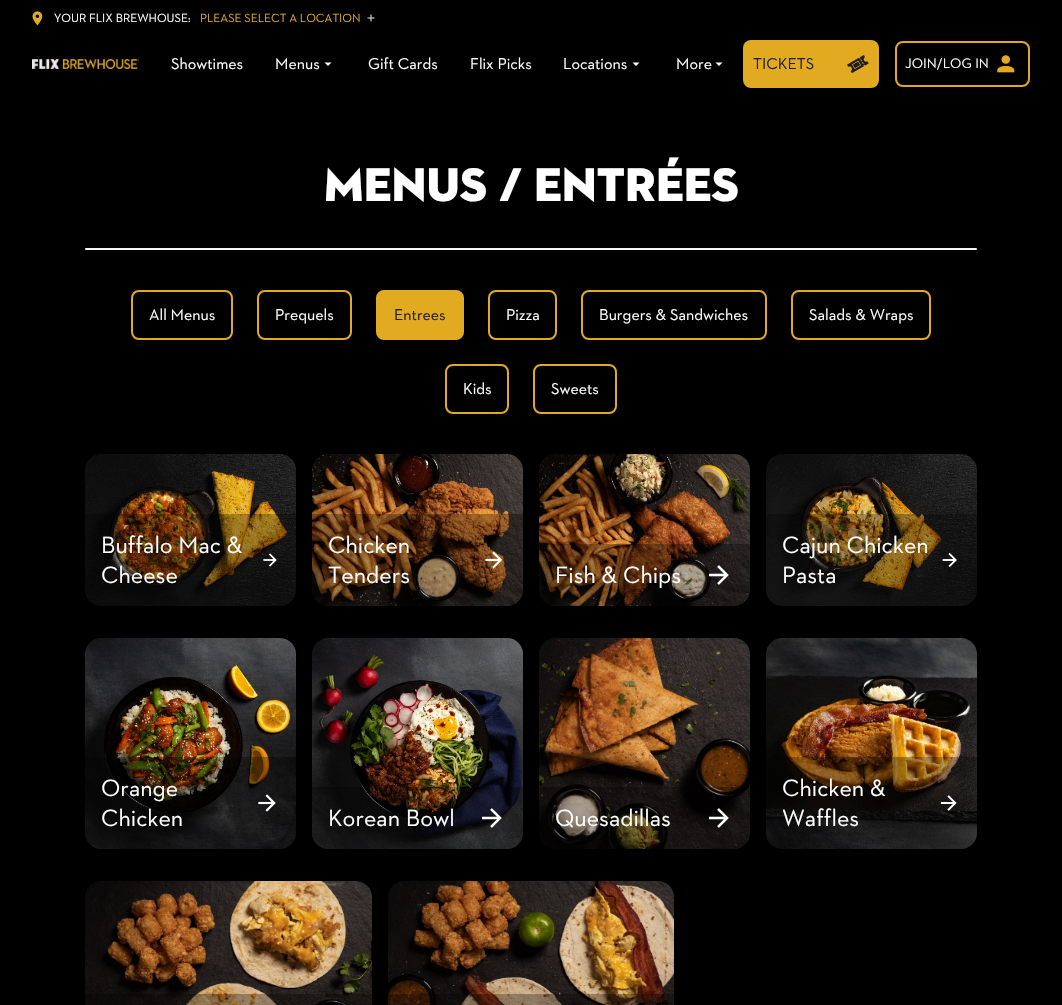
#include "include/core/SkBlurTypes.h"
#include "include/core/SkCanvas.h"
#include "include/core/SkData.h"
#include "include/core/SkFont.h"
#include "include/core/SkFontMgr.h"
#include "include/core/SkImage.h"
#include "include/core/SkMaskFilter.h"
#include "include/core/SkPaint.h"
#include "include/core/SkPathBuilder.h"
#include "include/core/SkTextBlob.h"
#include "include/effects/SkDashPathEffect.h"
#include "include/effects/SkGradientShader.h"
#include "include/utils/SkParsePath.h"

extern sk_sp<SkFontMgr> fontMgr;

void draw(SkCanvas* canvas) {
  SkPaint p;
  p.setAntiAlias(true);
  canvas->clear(SK_ColorBLACK);
  canvas->drawImageRect(SkImages::DeferredFromEncodedData(SkData::MakeFromFileName("images/1.png")), SkRect::MakeLTRB(32, 11, 43, 26), SkSamplingOptions());
  canvas->drawImageRect(SkImages::DeferredFromEncodedData(SkData::MakeFromFileName("images/2.png")), SkRect::MakeLTRB(367, 14, 375, 22), SkSamplingOptions());
  canvas->drawImageRect(SkImages::DeferredFromEncodedData(SkData::MakeFromFileName("images/3.png")), SkRect::MakeLTRB(32, 59, 139, 69), SkSamplingOptions());
  p.setColor(SK_ColorWHITE);
  canvas->drawPath(SkPathBuilder().moveTo(324.5f, 62.5f).lineTo(328, 66).lineTo(331.5f, 62.5f).close().detach(), p);
  canvas->drawPath(SkPathBuilder().moveTo(632.5f, 62.5f).lineTo(636, 66).lineTo(639.5f, 62.5f).close().detach(), p);
  canvas->drawPath(SkPathBuilder().moveTo(715.5f, 62.5f).lineTo(719, 66).lineTo(722.5f, 62.5f).close().detach(), p);
  p.setColor(SkColorSetRGB(225, 170, 33));
  canvas->drawRoundRect(SkRect::MakeLTRB(743, 40, 879, 88), 8, 8, p);
  canvas->drawImageRect(SkImages::DeferredFromEncodedData(SkData::MakeFromFileName("images/4.png")), SkRect::MakeLTRB(847, 55, 869, 73), SkSamplingOptions());
  p.setStyle(SkPaint::kStroke_Style);
  p.setStrokeWidth(2);
  canvas->drawRoundRect(SkRect::MakeLTRB(896, 42, 1029, 86), 7, 7, p);
  canvas->drawImageRect(SkImages::DeferredFromEncodedData(SkData::MakeFromFileName("images/5.png")), SkRect::MakeLTRB(997, 55, 1015, 73), SkSamplingOptions());
  p.setStyle(SkPaint::kFill_Style);
  p.setColor(SkColorSetRGB(247, 247, 247));
  canvas->drawRoundRect(SkRect::MakeLTRB(85, 248, 977, 250), 1, 1, p);
  p.setStyle(SkPaint::kStroke_Style);
  p.setColor(SkColorSetRGB(225, 170, 33));
  canvas->drawRoundRect(SkRect::MakeLTRB(132, 291, 232, 339), 7, 7, p);
  canvas->drawRoundRect(SkRect::MakeLTRB(258, 291, 351, 339), 7, 7, p);
  p.setStyle(SkPaint::kFill_Style);
  canvas->drawRoundRect(SkRect::MakeLTRB(377, 291, 463, 339), 7, 7, p);
  p.setStyle(SkPaint::kStroke_Style);
  canvas->drawRoundRect(SkRect::MakeLTRB(377, 291, 463, 339), 7, 7, p);
  canvas->drawRoundRect(SkRect::MakeLTRB(489, 291, 556, 339), 7, 7, p);
  canvas->drawRoundRect(SkRect::MakeLTRB(582, 291, 766, 339), 7, 7, p);
  canvas->drawRoundRect(SkRect::MakeLTRB(792, 291, 930, 339), 7, 7, p);
  canvas->drawRoundRect(SkRect::MakeLTRB(446, 365, 508, 413), 7, 7, p);
  canvas->drawRoundRect(SkRect::MakeLTRB(534, 365, 616, 413), 7, 7, p);
  canvas->drawImageRect(SkImages::DeferredFromEncodedData(SkData::MakeFromFileName("images/6.png")), SkRect::MakeLTRB(85, 454, 296, 606), SkSamplingOptions());
  p.setStyle(SkPaint::kFill_Style);
  p.setColor(SkColorSetARGB(77, 0, 0, 0));
  canvas->drawPath(SkPathBuilder().moveTo(85, 514).lineTo(296, 514).lineTo(296, 590).cubicTo(296, 599, 289, 606, 280, 606).lineTo(101, 606).cubicTo(92, 606, 85, 599, 85, 590).close().detach(), p);
  canvas->drawImageRect(SkImages::DeferredFromEncodedData(SkData::MakeFromFileName("images/7.png")), SkRect::MakeLTRB(263, 553, 277, 567), SkSamplingOptions());
  canvas->drawImageRect(SkImages::DeferredFromEncodedData(SkData::MakeFromFileName("images/8.png")), SkRect::MakeLTRB(312, 454, 523, 606), SkSamplingOptions());
  canvas->drawPath(SkPathBuilder().moveTo(312, 514).lineTo(523, 514).lineTo(523, 590).cubicTo(523, 599, 516, 606, 507, 606).lineTo(328, 606).cubicTo(319, 606, 312, 599, 312, 590).close().detach(), p);
  canvas->drawImageRect(SkImages::DeferredFromEncodedData(SkData::MakeFromFileName("images/9.png")), SkRect::MakeLTRB(485, 551, 502, 569), SkSamplingOptions());
  canvas->drawImageRect(SkImages::DeferredFromEncodedData(SkData::MakeFromFileName("images/10.png")), SkRect::MakeLTRB(539, 454, 750, 606), SkSamplingOptions());
  canvas->drawPath(SkPathBuilder().moveTo(539, 544).lineTo(750, 544).lineTo(750, 590).cubicTo(750, 599, 743, 606, 734, 606).lineTo(555, 606).cubicTo(546, 606, 539, 599, 539, 590).close().detach(), p);
  canvas->drawImageRect(SkImages::DeferredFromEncodedData(SkData::MakeFromFileName("images/11.png")), SkRect::MakeLTRB(709, 565, 729, 585), SkSamplingOptions());
  canvas->drawImageRect(SkImages::DeferredFromEncodedData(SkData::MakeFromFileName("images/12.png")), SkRect::MakeLTRB(766, 454, 977, 606), SkSamplingOptions());
  canvas->drawPath(SkPathBuilder().moveTo(766, 514).lineTo(977, 514).lineTo(977, 590).cubicTo(977, 599, 970, 606, 961, 606).lineTo(782, 606).cubicTo(773, 606, 766, 599, 766, 590).close().detach(), p);
  canvas->drawImageRect(SkImages::DeferredFromEncodedData(SkData::MakeFromFileName("images/13.png")), SkRect::MakeLTRB(942, 553, 957, 567), SkSamplingOptions());
  canvas->drawImageRect(SkImages::DeferredFromEncodedData(SkData::MakeFromFileName("images/14.png")), SkRect::MakeLTRB(85, 638, 296, 849), SkSamplingOptions());
  canvas->drawPath(SkPathBuilder().moveTo(85, 757).lineTo(296, 757).lineTo(296, 833).cubicTo(296, 842, 289, 849, 280, 849).lineTo(101, 849).cubicTo(92, 849, 85, 842, 85, 833).close().detach(), p);
  canvas->drawImageRect(SkImages::DeferredFromEncodedData(SkData::MakeFromFileName("images/15.png")), SkRect::MakeLTRB(258, 794, 276, 812), SkSamplingOptions());
  canvas->drawImageRect(SkImages::DeferredFromEncodedData(SkData::MakeFromFileName("images/16.png")), SkRect::MakeLTRB(312, 638, 523, 849), SkSamplingOptions());
  canvas->drawPath(SkPathBuilder().moveTo(312, 787).lineTo(523, 787).lineTo(523, 833).cubicTo(523, 842, 516, 849, 507, 849).lineTo(328, 849).cubicTo(319, 849, 312, 842, 312, 833).close().detach(), p);
  canvas->drawImageRect(SkImages::DeferredFromEncodedData(SkData::MakeFromFileName("images/17.png")), SkRect::MakeLTRB(482, 808, 502, 828), SkSamplingOptions());
  canvas->drawImageRect(SkImages::DeferredFromEncodedData(SkData::MakeFromFileName("images/18.png")), SkRect::MakeLTRB(539, 638, 750, 849), SkSamplingOptions());
  canvas->drawPath(SkPathBuilder().moveTo(539, 787).lineTo(750, 787).lineTo(750, 833).cubicTo(750, 842, 743, 849, 734, 849).lineTo(555, 849).cubicTo(546, 849, 539, 842, 539, 833).close().detach(), p);
  canvas->drawImageRect(SkImages::DeferredFromEncodedData(SkData::MakeFromFileName("images/19.png")), SkRect::MakeLTRB(709, 808, 729, 828), SkSamplingOptions());
  canvas->drawImageRect(SkImages::DeferredFromEncodedData(SkData::MakeFromFileName("images/20.png")), SkRect::MakeLTRB(766, 638, 977, 849), SkSamplingOptions());
  canvas->drawPath(SkPathBuilder().moveTo(766, 757).lineTo(977, 757).lineTo(977, 833).cubicTo(977, 842, 970, 849, 961, 849).lineTo(782, 849).cubicTo(773, 849, 766, 842, 766, 833).close().detach(), p);
  canvas->drawImageRect(SkImages::DeferredFromEncodedData(SkData::MakeFromFileName("images/21.png")), SkRect::MakeLTRB(940, 795, 957, 811), SkSamplingOptions());
  canvas->drawImageRect(SkImages::DeferredFromEncodedData(SkData::MakeFromFileName("images/22.png")), SkRect::MakeLTRB(85, 881, 372, 1005), SkSamplingOptions());
  canvas->drawRect(SkRect::MakeLTRB(85, 994, 372, 1005), p);
  canvas->drawImageRect(SkImages::DeferredFromEncodedData(SkData::MakeFromFileName("images/23.png")), SkRect::MakeLTRB(388, 881, 674, 1005), SkSamplingOptions());
  canvas->drawRect(SkRect::MakeLTRB(388, 994, 674, 1005), p);
  SkFont font1(fontMgr->matchFamilyStyle("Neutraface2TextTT", SkFontStyle::Normal()), 12);
  font1.setSubpixel(true);
  p.setColor(SK_ColorWHITE);
  canvas->drawString("YOUR FLIX BREWHOUSE:", 54, 22, font1, p);
  p.setColor(SkColorSetRGB(225, 170, 33));
  canvas->drawString("PLEASE SELECT A LOCATION", 200, 22, font1, p);
  SkFont font2(fontMgr->matchFamilyStyle("Neutraface2TextTT", SkFontStyle::Normal()), 16);
  font2.setSubpixel(true);
  p.setColor(SK_ColorWHITE);
  canvas->drawString("Showtimes", 171, 69, font2, p);
  canvas->drawString("Menus", 275, 69, font2, p);
  canvas->drawString("Gift Cards", 368, 69, font2, p);
  canvas->drawString("Flix Picks", 470, 69, font2, p);
  canvas->drawString("Locations", 563, 69, font2, p);
  canvas->drawString("More", 676, 69, font2, p);
  p.setColor(SkColorSetRGB(33, 32, 32));
  canvas->drawString("TICKETS", 753, 69, font2, p);
  SkFont font3(fontMgr->matchFamilyStyle("Neutraface2TextTT", SkFontStyle::Normal()), 14);
  font3.setSubpixel(true);
  p.setColor(SK_ColorWHITE);
  canvas->drawString("JOIN/LOG IN", 905, 68, font3, p);
  SkFont font4(fontMgr->matchFamilyStyle("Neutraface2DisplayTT", SkFontStyle(900, SkFontStyle::kNormal_Width, SkFontStyle::kUpright_Slant)), 48);
  font4.setSubpixel(true);
  canvas->drawString("MENUS / ENTRÉES", 324, 201, font4, p);
  canvas->drawString("All Menus", 149, 320, font2, p);
  canvas->drawString("Prequels", 275, 320, font2, p);
  p.setColor(SkColorSetRGB(33, 32, 32));
  canvas->drawString("Entrees", 394, 320, font2, p);
  p.setColor(SK_ColorWHITE);
  canvas->drawString("Pizza", 506, 320, font2, p);
  canvas->drawString("Burgers & Sandwiches", 599, 320, font2, p);
  canvas->drawString("Salads & Wraps", 809, 320, font2, p);
  canvas->drawString("Kids", 463, 394, font2, p);
  canvas->drawString("Sweets", 551, 394, font2, p);
  SkFont font5(fontMgr->matchFamilyStyle("Neutraface2TextTT", SkFontStyle::Normal()), 24);
  font5.setSubpixel(true);
  canvas->drawString("Buffalo Mac &", 101, 553, font5, p);
  canvas->drawString("Cheese", 101, 583, font5, p);
  canvas->drawString("Chicken", 328, 553, font5, p);
  canvas->drawString("Tenders", 328, 583, font5, p);
  canvas->drawString("Fish & Chips", 555, 583, font5, p);
  canvas->drawString("Cajun Chicken", 782, 553, font5, p);
  canvas->drawString("Pasta", 782, 583, font5, p);
  canvas->drawString("Orange", 101, 796, font5, p);
  canvas->drawString("Chicken", 101, 826, font5, p);
  canvas->drawString("Korean Bowl", 328, 826, font5, p);
  canvas->drawString("Quesadillas", 555, 826, font5, p);
  canvas->drawString("Chicken &", 782, 796, font5, p);
  canvas->drawString("Waffles", 782, 826, font5, p);
}
